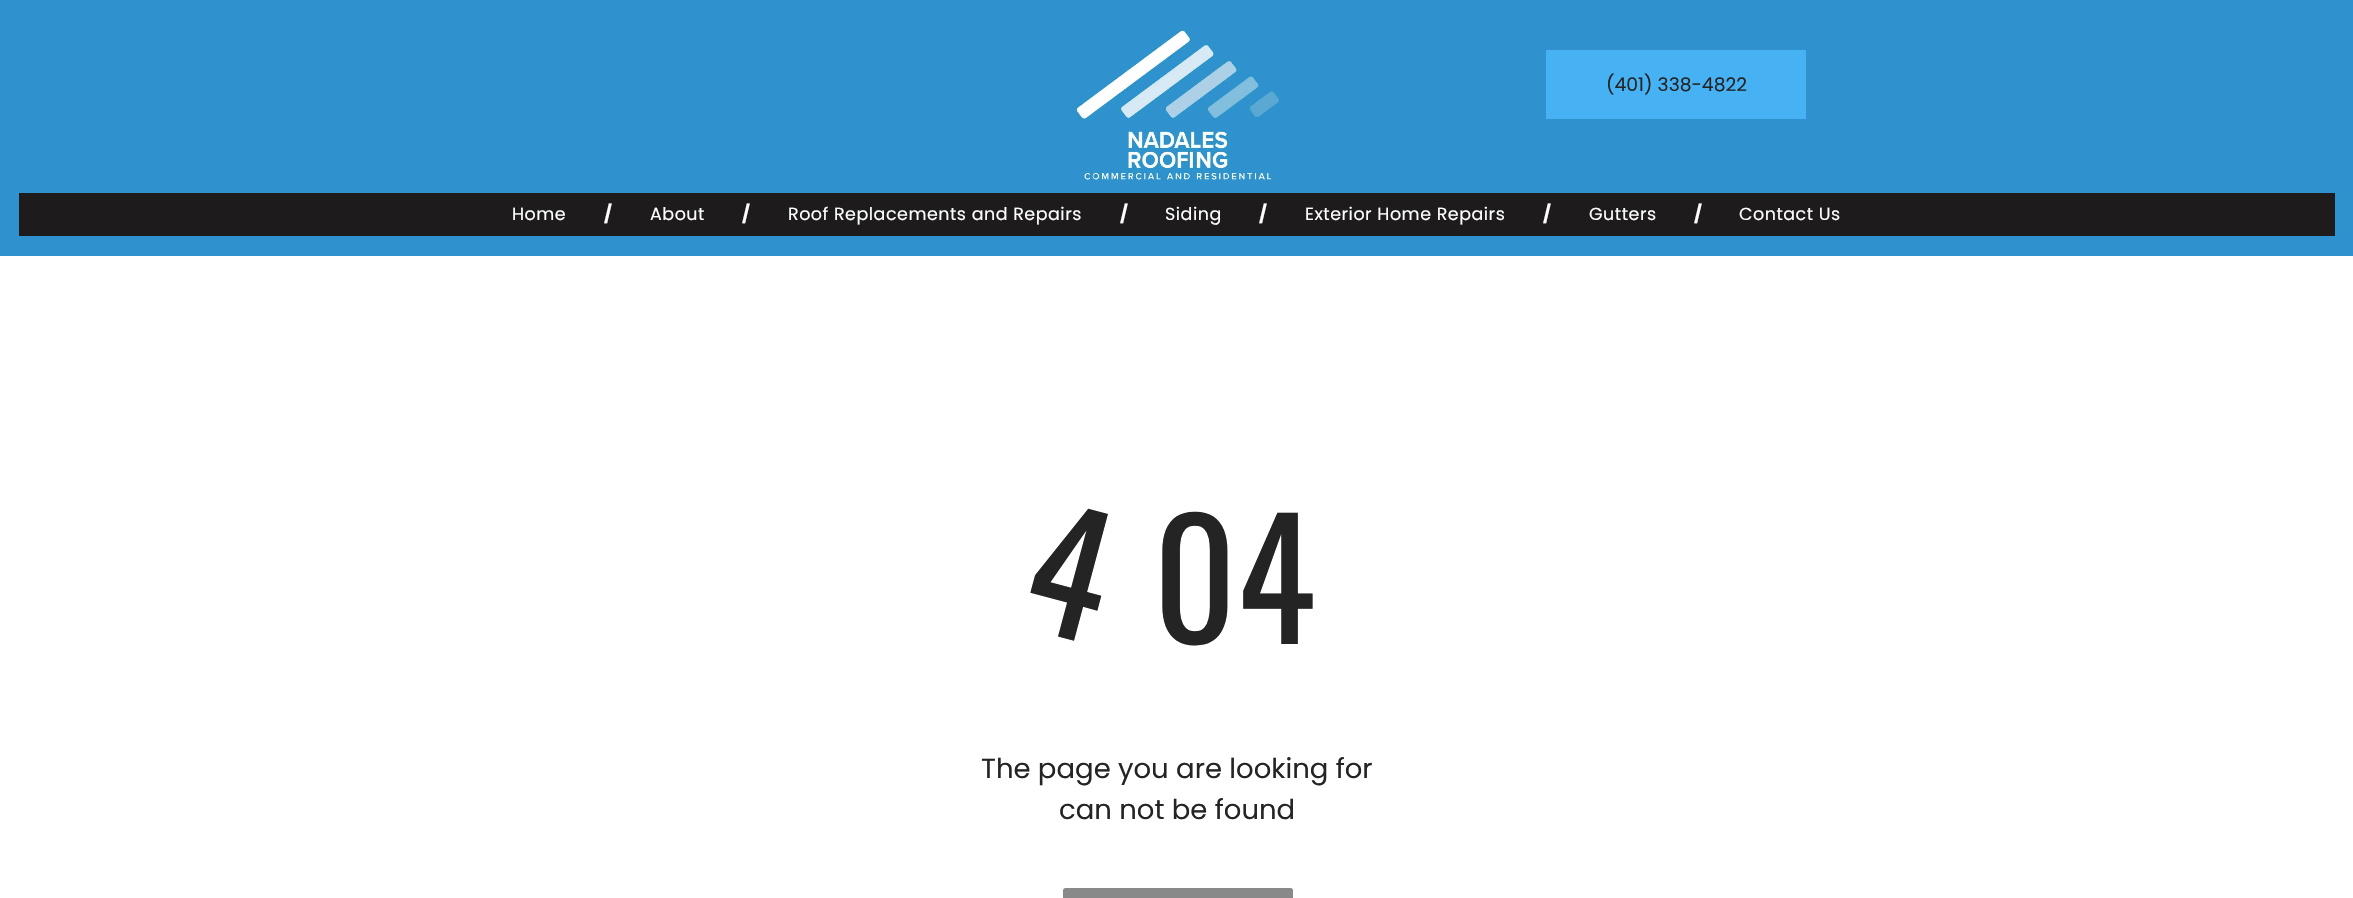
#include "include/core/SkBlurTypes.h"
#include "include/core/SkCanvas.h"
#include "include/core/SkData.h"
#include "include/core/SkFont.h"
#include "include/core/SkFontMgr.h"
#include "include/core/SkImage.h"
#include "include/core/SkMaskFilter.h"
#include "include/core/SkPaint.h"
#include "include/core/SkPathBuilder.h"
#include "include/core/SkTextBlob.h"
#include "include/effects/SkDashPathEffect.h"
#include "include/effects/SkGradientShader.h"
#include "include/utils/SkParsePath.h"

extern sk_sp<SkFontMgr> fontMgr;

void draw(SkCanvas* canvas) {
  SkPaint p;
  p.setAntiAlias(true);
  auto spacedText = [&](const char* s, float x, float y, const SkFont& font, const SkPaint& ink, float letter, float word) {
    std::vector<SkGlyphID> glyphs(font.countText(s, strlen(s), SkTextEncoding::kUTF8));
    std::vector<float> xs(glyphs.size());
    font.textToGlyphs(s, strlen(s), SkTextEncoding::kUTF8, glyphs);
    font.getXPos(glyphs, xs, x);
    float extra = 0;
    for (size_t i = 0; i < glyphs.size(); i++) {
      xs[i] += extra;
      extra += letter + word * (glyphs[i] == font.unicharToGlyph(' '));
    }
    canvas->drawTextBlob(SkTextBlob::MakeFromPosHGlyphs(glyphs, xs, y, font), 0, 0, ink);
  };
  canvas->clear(SK_ColorWHITE);
  p.setColor(SkColorSetRGB(47, 146, 206));
  canvas->drawRect(SkRect::MakeLTRB(0, 0, 2353, 256), p);
  canvas->drawImageRect(SkImages::DeferredFromEncodedData(SkData::MakeFromFileName("images/1.png")), SkRect::MakeLTRB(1073, 28, 1280, 180), SkSamplingOptions());
  p.setColor(SkColorSetRGB(70, 178, 243));
  canvas->drawRect(SkRect::MakeLTRB(1546, 50, 1806, 119), p);
  p.setColor(SkColorSetRGB(29, 27, 27));
  canvas->drawRect(SkRect::MakeLTRB(19, 193, 2335, 236), p);
  p.setColor(SkColorSetRGB(137, 137, 137));
  canvas->drawRoundRect(SkRect::MakeLTRB(1063, 888, 1293, 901), 2.5f, 2.5f, p);
  SkFont font1(fontMgr->matchFamilyStyle("Poppins", SkFontStyle::Normal()), 18.75f);
  font1.setSubpixel(true);
  p.setColor(SkColorSetRGB(36, 36, 36));
  canvas->drawString("(401) 338-4822", 1606, 91, font1, p);
  SkFont font2(fontMgr->matchFamilyStyle("Poppins", SkFontStyle::Normal()), 17.5f);
  font2.setSubpixel(true);
  p.setColor(SK_ColorWHITE);
  spacedText("Home", 512, 220, font2, p, 0.5f, 0);
  SkFont font3(fontMgr->matchFamilyStyle("Poppins", SkFontStyle::Bold()), 17.5f);
  font3.setSubpixel(true);
  canvas->drawString("/", 604, 220, font3, p);
  spacedText("About", 650, 220, font2, p, 0.5f, 0);
  canvas->drawString("/", 742, 220, font3, p);
  spacedText("Roof Replacements and Repairs", 788, 220, font2, p, 0.5f, 0);
  canvas->drawString("/", 1120, 220, font3, p);
  spacedText("Siding", 1165, 220, font2, p, 0.5f, 0);
  canvas->drawString("/", 1259, 220, font3, p);
  spacedText("Exterior Home Repairs", 1305, 220, font2, p, 0.5f, 0);
  canvas->drawString("/", 1543, 220, font3, p);
  spacedText("Gutters", 1589, 220, font2, p, 0.5f, 0);
  canvas->drawString("/", 1694, 220, font3, p);
  spacedText("Contact Us", 1739, 220, font2, p, 0.5f, 0);
  SkFont font4(fontMgr->matchFamilyStyle("Oswald", SkFontStyle::Normal()), 162);
  font4.setSubpixel(true);
  p.setColor(SkColorSetRGB(36, 36, 36));
  canvas->save();
  canvas->rotate(15, 1015, 625);
  canvas->drawString("4", 1015, 625, font4, p);
  canvas->restore();
  canvas->drawString("04", 1153, 644, font4, p);
  SkFont font5(fontMgr->matchFamilyStyle("Poppins", SkFontStyle::Normal()), 27.5f);
  font5.setSubpixel(true);
  canvas->drawString("The page you are looking for", 981, 778, font5, p);
  canvas->drawString("can not be found", 1059, 819, font5, p);
}
